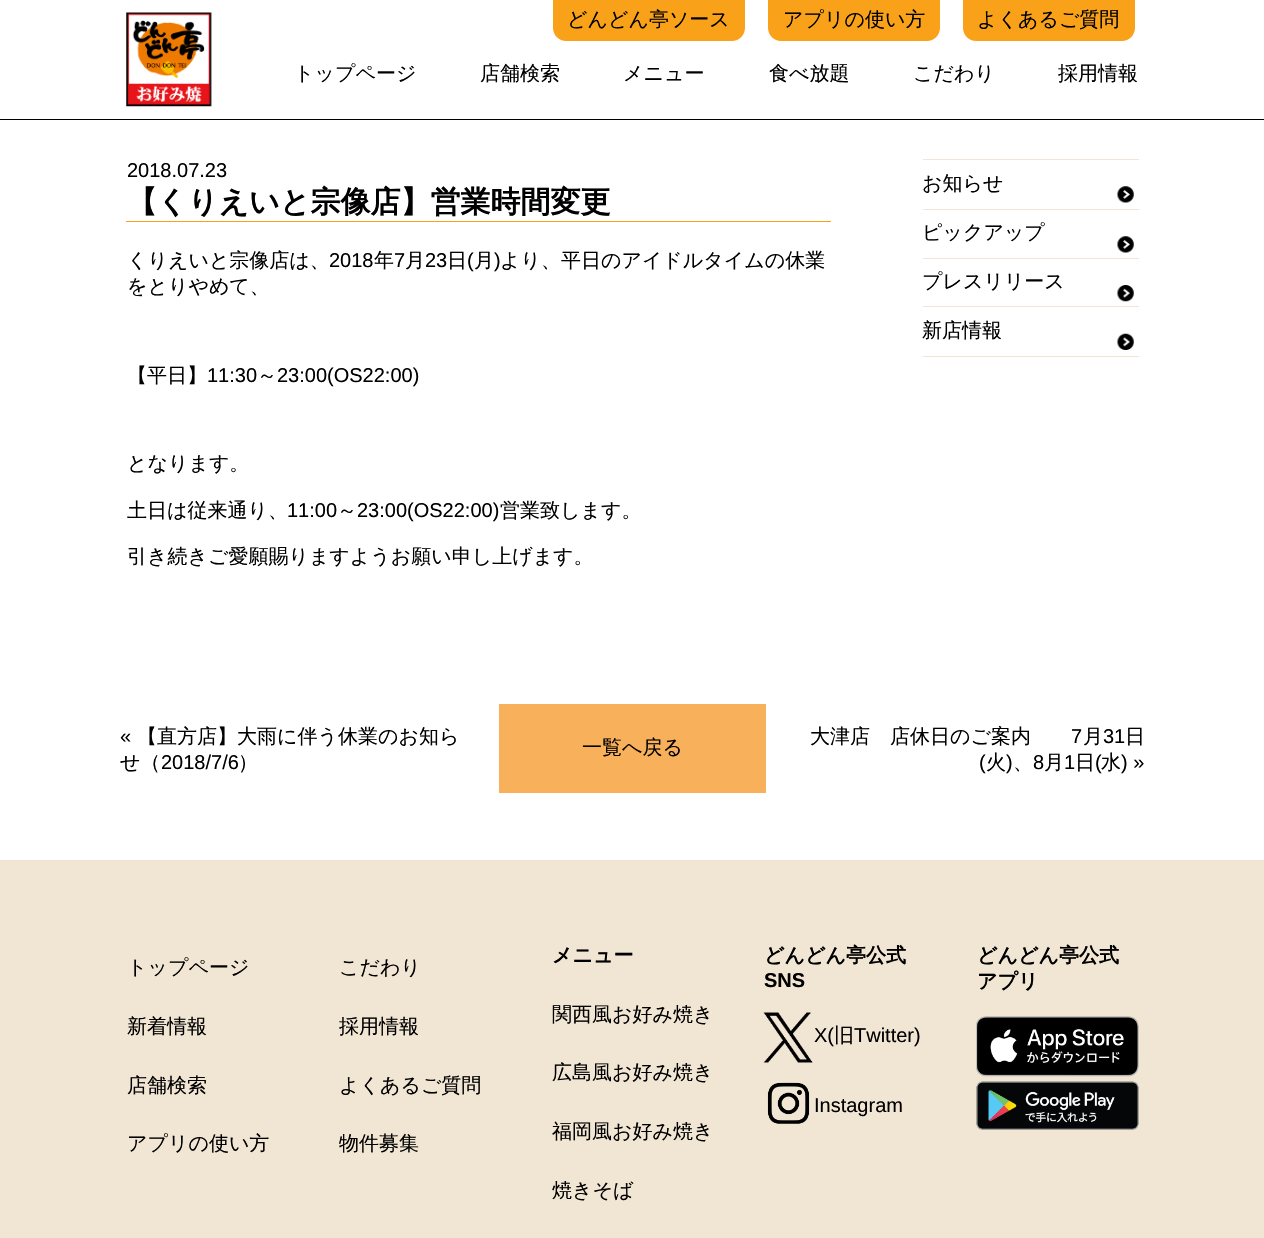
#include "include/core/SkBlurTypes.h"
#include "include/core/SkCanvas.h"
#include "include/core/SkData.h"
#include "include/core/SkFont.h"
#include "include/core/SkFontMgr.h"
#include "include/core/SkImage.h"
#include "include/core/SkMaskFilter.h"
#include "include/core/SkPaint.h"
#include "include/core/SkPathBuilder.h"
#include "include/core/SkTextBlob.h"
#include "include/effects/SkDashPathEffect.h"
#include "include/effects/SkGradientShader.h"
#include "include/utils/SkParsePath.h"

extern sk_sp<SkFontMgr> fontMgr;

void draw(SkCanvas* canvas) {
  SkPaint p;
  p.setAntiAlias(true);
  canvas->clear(SK_ColorWHITE);
  p.setColor(SK_ColorBLACK);
  canvas->drawRect(SkRect::MakeLTRB(0, 119, 1264, 120), p);
  canvas->drawImageRect(SkImages::DeferredFromEncodedData(SkData::MakeFromFileName("images/1.png")), SkRect::MakeLTRB(126, 12, 212, 107), SkSamplingOptions());
  p.setColor(SkColorSetRGB(249, 162, 25));
  canvas->drawPath(SkPathBuilder().moveTo(553, 0).lineTo(745, 0).lineTo(745, 28).cubicTo(745, 35, 739, 41, 732, 41).lineTo(566, 41).cubicTo(559, 41, 553, 35, 553, 28).close().detach(), p);
  canvas->drawPath(SkPathBuilder().moveTo(768, 0).lineTo(940, 0).lineTo(940, 28).cubicTo(940, 35, 934, 41, 927, 41).lineTo(781, 41).cubicTo(774, 41, 768, 35, 768, 28).close().detach(), p);
  canvas->drawPath(SkPathBuilder().moveTo(963, 0).lineTo(1135, 0).lineTo(1135, 28).cubicTo(1135, 35, 1129, 41, 1122, 41).lineTo(976, 41).cubicTo(969, 41, 963, 35, 963, 28).close().detach(), p);
  canvas->drawRect(SkRect::MakeLTRB(126, 221, 831, 222), p);
  p.setColor(SkColorSetRGB(241, 229, 211));
  canvas->drawRect(SkRect::MakeLTRB(923, 159, 1139, 160), p);
  canvas->drawImageRect(SkImages::DeferredFromEncodedData(SkData::MakeFromFileName("images/2.png")), SkRect::MakeLTRB(1117, 186, 1134, 203), SkSamplingOptions());
  canvas->drawRect(SkRect::MakeLTRB(923, 209, 1139, 210), p);
  canvas->drawImageRect(SkImages::DeferredFromEncodedData(SkData::MakeFromFileName("images/2.png")), SkRect::MakeLTRB(1117, 236, 1134, 253), SkSamplingOptions());
  canvas->drawRect(SkRect::MakeLTRB(923, 258, 1139, 259), p);
  canvas->drawImageRect(SkImages::DeferredFromEncodedData(SkData::MakeFromFileName("images/3.png")), SkRect::MakeLTRB(1117, 285, 1134, 302), SkSamplingOptions());
  canvas->drawRect(SkRect::MakeLTRB(923, 306, 1139, 307), p);
  canvas->drawRect(SkRect::MakeLTRB(923, 356, 1139, 357), p);
  canvas->drawImageRect(SkImages::DeferredFromEncodedData(SkData::MakeFromFileName("images/4.png")), SkRect::MakeLTRB(1117, 333, 1134, 350), SkSamplingOptions());
  p.setColor(SkColorSetRGB(249, 176, 90));
  canvas->drawRect(SkRect::MakeLTRB(499, 704, 766, 793), p);
  p.setColor(SkColorSetRGB(241, 229, 211));
  canvas->drawRect(SkRect::MakeLTRB(0, 860, 1264, 1238), p);
  canvas->drawImageRect(SkImages::DeferredFromEncodedData(SkData::MakeFromFileName("images/5.png")), SkRect::MakeLTRB(763, 1012, 813, 1063), SkSamplingOptions());
  canvas->drawImageRect(SkImages::DeferredFromEncodedData(SkData::MakeFromFileName("images/6.png")), SkRect::MakeLTRB(767, 1082, 810, 1124), SkSamplingOptions());
  canvas->drawImageRect(SkImages::DeferredFromEncodedData(SkData::MakeFromFileName("images/7.png")), SkRect::MakeLTRB(976, 1016, 1139, 1077), SkSamplingOptions());
  canvas->drawImageRect(SkImages::DeferredFromEncodedData(SkData::MakeFromFileName("images/8.png")), SkRect::MakeLTRB(976, 1081, 1139, 1130), SkSamplingOptions());
  SkFont font1(fontMgr->matchFamilyStyle("WenQuanYi Zen Hei", SkFontStyle(500, SkFontStyle::kNormal_Width, SkFontStyle::kUpright_Slant)), 20);
  font1.setSubpixel(true);
  p.setColor(SK_ColorBLACK);
  canvas->drawString("どんどん亭ソース", 567, 26, font1, p);
  canvas->drawString("アプリの使い方", 783, 26, font1, p);
  canvas->drawString("よくあるご質問", 977, 26, font1, p);
  canvas->drawString("トップページ", 294, 80, font1, p);
  canvas->drawString("店舗検索", 480, 80, font1, p);
  canvas->drawString("メニュー", 623, 80, font1, p);
  canvas->drawString("食べ放題", 769, 80, font1, p);
  canvas->drawString("こだわり", 913, 80, font1, p);
  canvas->drawString("採用情報", 1058, 80, font1, p);
  SkFont font2(fontMgr->matchFamilyStyle("Liberation Sans", SkFontStyle::Normal()), 20);
  font2.setSubpixel(true);
  canvas->drawString("2018.07.23", 127, 177, font2, p);
  SkFont font3(fontMgr->matchFamilyStyle("WenQuanYi Zen Hei", SkFontStyle::Bold()), 30);
  font3.setSubpixel(true);
  canvas->drawString("【くりえいと宗像店】営業時間変更", 127, 212, font3, p);
  canvas->drawString("くりえいと宗像店は、", 127, 267, font1, p);
  canvas->drawString("2018", 329, 267, font2, p);
  canvas->drawString("年", 374, 267, font1, p);
  canvas->drawString("7", 394, 267, font2, p);
  canvas->drawString("月", 405, 267, font1, p);
  canvas->drawString("23", 425, 267, font2, p);
  canvas->drawString("日", 447, 267, font1, p);
  canvas->drawString("(", 467, 267, font2, p);
  canvas->drawString("月", 474, 267, font1, p);
  canvas->drawString(")", 494, 267, font2, p);
  canvas->drawString("より、平日のアイドルタイムの休業", 500, 267, font1, p);
  canvas->drawString("をとりやめて、", 127, 293, font1, p);
  canvas->drawString("【平日】", 127, 382, font1, p);
  canvas->drawString("11:30", 207, 382, font2, p);
  canvas->drawString("～", 257, 382, font1, p);
  canvas->drawString("23:00(OS22:00)", 277, 382, font2, p);
  canvas->drawString("となります。", 127, 470, font1, p);
  canvas->drawString("土日は従来通り、", 127, 517, font1, p);
  canvas->drawString("11:00", 287, 517, font2, p);
  canvas->drawString("～", 337, 517, font1, p);
  canvas->drawString("23:00(OS22:00)", 357, 517, font2, p);
  canvas->drawString("営業致します。", 500, 517, font1, p);
  canvas->drawString("引き続きご愛願賜りますようお願い申し上げます。", 127, 563, font1, p);
  canvas->drawString("お知らせ", 922, 190, font1, p);
  canvas->drawString("ピックアップ", 922, 239, font1, p);
  canvas->drawString("プレスリリース", 922, 288, font1, p);
  canvas->drawString("新店情報", 922, 337, font1, p);
  canvas->drawString("«", 120, 743, font2, p);
  canvas->drawString("【直方店】大雨に伴う休業のお知ら", 137, 743, font1, p);
  canvas->drawString("せ（", 120, 769, font1, p);
  canvas->drawString("2018/7/6", 161, 769, font2, p);
  canvas->drawString("）", 238, 769, font1, p);
  canvas->drawString("一覧へ戻る", 582, 754, font1, p);
  canvas->drawString("大津店　店休日のご案内", 810, 743, font1, p);
  canvas->drawString("7", 1071, 743, font2, p);
  canvas->drawString("月", 1083, 743, font1, p);
  canvas->drawString("31", 1103, 743, font2, p);
  canvas->drawString("日", 1125, 743, font1, p);
  canvas->drawString("(", 979, 769, font2, p);
  canvas->drawString("火", 986, 769, font1, p);
  canvas->drawString(")", 1006, 769, font2, p);
  canvas->drawString("8", 1033, 769, font2, p);
  canvas->drawString("月", 1044, 769, font1, p);
  canvas->drawString("1", 1064, 769, font2, p);
  canvas->drawString("日", 1075, 769, font1, p);
  canvas->drawString("(", 1095, 769, font2, p);
  canvas->drawString("水", 1101, 769, font1, p);
  canvas->drawString(") »", 1121, 769, font2, p);
  canvas->drawString("、", 1013, 769, font1, p);
  canvas->drawString("トップページ", 127, 974, font1, p);
  canvas->drawString("新着情報", 127, 1033, font1, p);
  canvas->drawString("店舗検索", 127, 1092, font1, p);
  canvas->drawString("アプリの使い方", 127, 1150, font1, p);
  canvas->drawString("こだわり", 339, 974, font1, p);
  canvas->drawString("採用情報", 339, 1033, font1, p);
  canvas->drawString("よくあるご質問", 339, 1092, font1, p);
  canvas->drawString("物件募集", 339, 1150, font1, p);
  SkFont font4(fontMgr->matchFamilyStyle("WenQuanYi Zen Hei", SkFontStyle::Bold()), 20);
  font4.setSubpixel(true);
  canvas->drawString("メニュー", 552, 962, font4, p);
  canvas->drawString("関西風お好み焼き", 552, 1021, font1, p);
  canvas->drawString("広島風お好み焼き", 552, 1079, font1, p);
  canvas->drawString("福岡風お好み焼き", 552, 1138, font1, p);
  canvas->drawString("焼きそば", 552, 1197, font1, p);
  canvas->drawString("どんどん亭公式", 764, 962, font4, p);
  SkFont font5(fontMgr->matchFamilyStyle("Liberation Sans", SkFontStyle::Bold()), 20);
  font5.setSubpixel(true);
  canvas->drawString("SNS", 764, 987, font5, p);
  canvas->drawString("X(", 814, 1042, font2, p);
  canvas->drawString("旧", 834, 1042, font1, p);
  canvas->drawString("Twitter)", 854, 1042, font2, p);
  canvas->drawString("Instagram", 814, 1112, font2, p);
  canvas->drawString("どんどん亭公式", 977, 962, font4, p);
  canvas->drawString("アプリ", 977, 988, font4, p);
}
